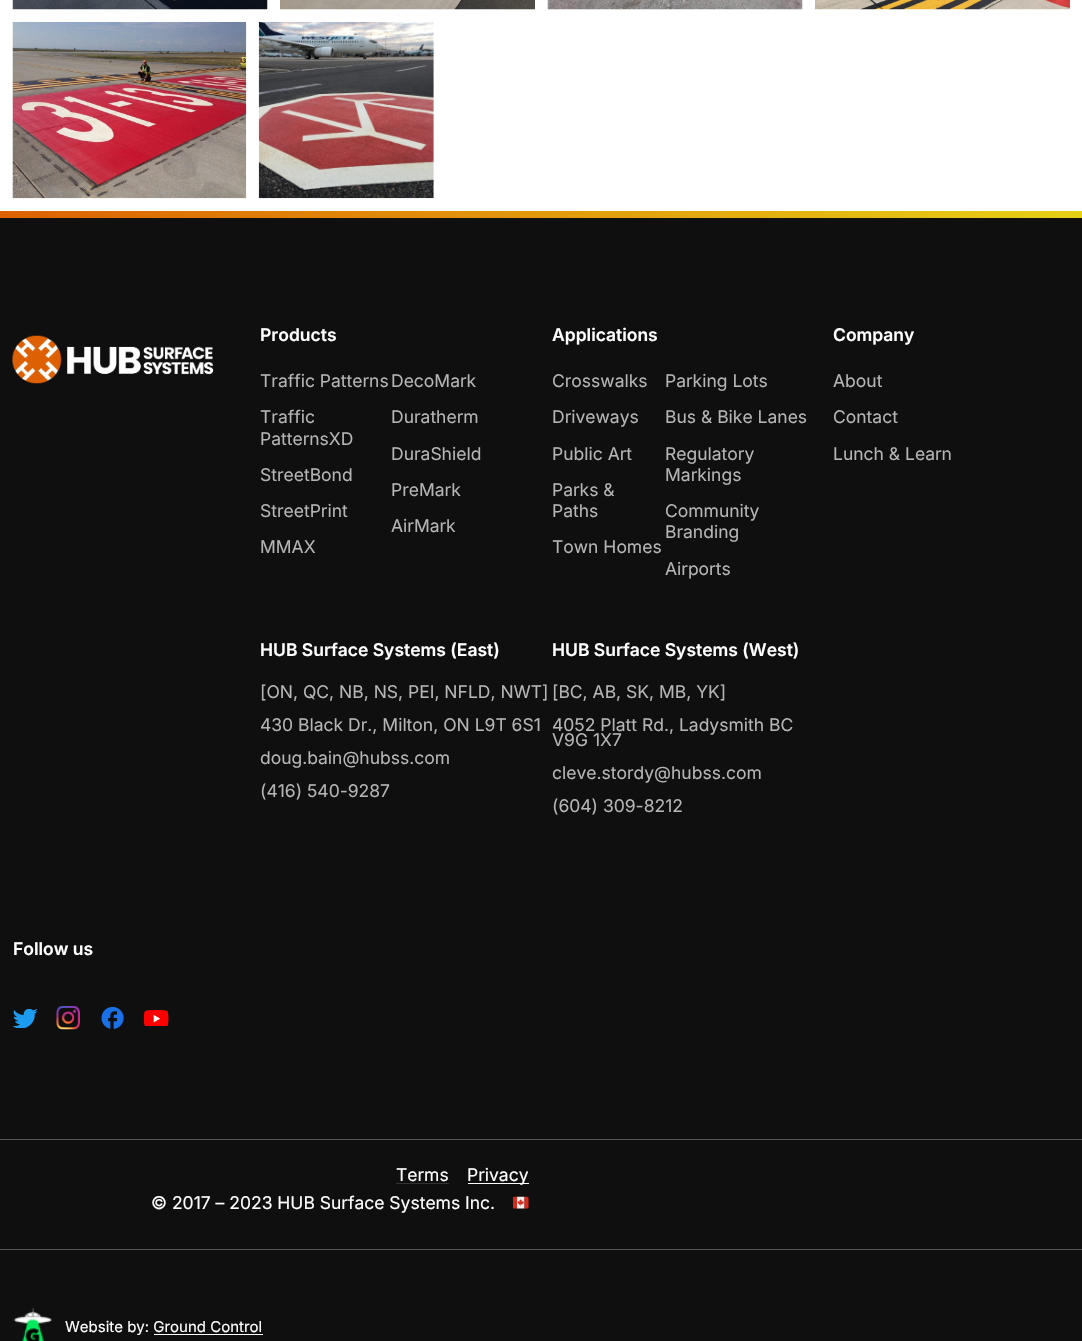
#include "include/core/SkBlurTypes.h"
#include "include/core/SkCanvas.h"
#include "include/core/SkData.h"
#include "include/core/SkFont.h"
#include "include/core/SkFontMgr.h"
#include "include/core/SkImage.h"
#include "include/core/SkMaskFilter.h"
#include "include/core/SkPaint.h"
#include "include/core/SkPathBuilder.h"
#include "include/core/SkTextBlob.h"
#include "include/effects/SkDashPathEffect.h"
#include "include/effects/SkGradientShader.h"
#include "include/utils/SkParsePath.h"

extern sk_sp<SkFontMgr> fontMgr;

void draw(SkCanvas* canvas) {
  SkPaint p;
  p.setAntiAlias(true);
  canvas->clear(SK_ColorWHITE);
  canvas->drawImageRect(SkImages::DeferredFromEncodedData(SkData::MakeFromFileName("images/1.png")), SkRect::MakeLTRB(12, 0, 268, 10), SkSamplingOptions());
  canvas->drawImageRect(SkImages::DeferredFromEncodedData(SkData::MakeFromFileName("images/2.png")), SkRect::MakeLTRB(280, 0, 535, 10), SkSamplingOptions());
  canvas->drawImageRect(SkImages::DeferredFromEncodedData(SkData::MakeFromFileName("images/3.png")), SkRect::MakeLTRB(547, 0, 803, 10), SkSamplingOptions());
  canvas->drawImageRect(SkImages::DeferredFromEncodedData(SkData::MakeFromFileName("images/4.png")), SkRect::MakeLTRB(815, 0, 1070, 10), SkSamplingOptions());
  canvas->drawImageRect(SkImages::DeferredFromEncodedData(SkData::MakeFromFileName("images/5.png")), SkRect::MakeLTRB(12, 22, 247, 199), SkSamplingOptions());
  canvas->drawImageRect(SkImages::DeferredFromEncodedData(SkData::MakeFromFileName("images/6.png")), SkRect::MakeLTRB(258, 22, 434, 199), SkSamplingOptions());
  p.setColor(SkColorSetRGB(15, 15, 15));
  canvas->drawRect(SkRect::MakeLTRB(0, 218, 1082, 1139), p);
  {
    const SkColor colors[] = {SkColorSetRGB(221, 97, 3), SkColorSetRGB(230, 209, 22), SkColorSetRGB(221, 97, 3)};
    const float stops[] = {0, 0, 1};
    const SkPoint ends[] = {{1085, 214}, {-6.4f, 214}};
    p.setShader(SkGradientShader::MakeLinear(ends, colors, stops, 3, SkTileMode::kClamp));
    p.setAlpha(255);
  }
  canvas->drawRect(SkRect::MakeLTRB(0, 211, 1082, 218), p);
  canvas->drawImageRect(SkImages::DeferredFromEncodedData(SkData::MakeFromFileName("images/7.png")), SkRect::MakeLTRB(12, 335, 214, 384), SkSamplingOptions());
  canvas->drawImageRect(SkImages::DeferredFromEncodedData(SkData::MakeFromFileName("images/8.png")), SkRect::MakeLTRB(13, 1009, 38, 1028), SkSamplingOptions());
  canvas->drawImageRect(SkImages::DeferredFromEncodedData(SkData::MakeFromFileName("images/9.png")), SkRect::MakeLTRB(56, 1006, 80, 1030), SkSamplingOptions());
  canvas->drawImageRect(SkImages::DeferredFromEncodedData(SkData::MakeFromFileName("images/10.png")), SkRect::MakeLTRB(101, 1006, 124, 1029), SkSamplingOptions());
  canvas->drawImageRect(SkImages::DeferredFromEncodedData(SkData::MakeFromFileName("images/11.png")), SkRect::MakeLTRB(144, 1010, 169, 1026), SkSamplingOptions());
  p.setShader(nullptr);
  p.setColor(SkColorSetRGB(15, 15, 15));
  canvas->drawRect(SkRect::MakeLTRB(0, 1140, 1082, 1249), p);
  p.setColor(SkColorSetRGB(85, 85, 85));
  canvas->drawRect(SkRect::MakeLTRB(0, 1139, 1082, 1140), p);
  p.setColor(SkColorSetRGB(51, 51, 51));
  canvas->drawRect(SkRect::MakeLTRB(396, 1183, 449, 1184), p);
  p.setColor(SK_ColorWHITE);
  canvas->drawRect(SkRect::MakeLTRB(468, 1183, 529, 1184), p);
  canvas->drawImageRect(SkImages::DeferredFromEncodedData(SkData::MakeFromFileName("images/12.png")), SkRect::MakeLTRB(513, 1196, 529, 1209), SkSamplingOptions());
  p.setColor(SkColorSetRGB(15, 15, 15));
  canvas->drawRect(SkRect::MakeLTRB(0, 1250, 1082, 1341), p);
  p.setColor(SkColorSetRGB(85, 85, 85));
  canvas->drawRect(SkRect::MakeLTRB(0, 1249, 1082, 1250), p);
  canvas->drawImageRect(SkImages::DeferredFromEncodedData(SkData::MakeFromFileName("images/13.png")), SkRect::MakeLTRB(13, 1308, 52, 1341), SkSamplingOptions());
  p.setColor(SK_ColorWHITE);
  canvas->drawRect(SkRect::MakeLTRB(154, 1334, 263, 1335), p);
  SkFont font1(fontMgr->matchFamilyStyle("Inter", SkFontStyle(600, SkFontStyle::kNormal_Width, SkFontStyle::kUpright_Slant)), 17.5f);
  font1.setSubpixel(true);
  canvas->drawString("Products", 260, 341, font1, p);
  SkFont font2(fontMgr->matchFamilyStyle("Inter", SkFontStyle::Normal()), 17.5f);
  font2.setSubpixel(true);
  p.setColor(SkColorSetRGB(181, 181, 181));
  canvas->drawString("Traffic Patterns", 260, 387, font2, p);
  canvas->drawString("Traffic", 260, 423, font2, p);
  canvas->drawString("PatternsXD", 260, 445, font2, p);
  canvas->drawString("StreetBond", 260, 481, font2, p);
  canvas->drawString("StreetPrint", 260, 517, font2, p);
  canvas->drawString("MMAX", 260, 553, font2, p);
  canvas->drawString("DecoMark", 391, 387, font2, p);
  canvas->drawString("Duratherm", 391, 423, font2, p);
  canvas->drawString("DuraShield", 391, 460, font2, p);
  canvas->drawString("PreMark", 391, 496, font2, p);
  canvas->drawString("AirMark", 391, 532, font2, p);
  p.setColor(SK_ColorWHITE);
  canvas->drawString("Applications", 552, 341, font1, p);
  p.setColor(SkColorSetRGB(181, 181, 181));
  canvas->drawString("Crosswalks", 552, 387, font2, p);
  canvas->drawString("Driveways", 552, 423, font2, p);
  canvas->drawString("Public Art", 552, 460, font2, p);
  canvas->drawString("Parks &", 552, 496, font2, p);
  canvas->drawString("Paths", 552, 517, font2, p);
  canvas->drawString("Town Homes", 552, 553, font2, p);
  canvas->drawString("Parking Lots", 665, 387, font2, p);
  canvas->drawString("Bus & Bike Lanes", 665, 423, font2, p);
  canvas->drawString("Regulatory", 665, 460, font2, p);
  canvas->drawString("Markings", 665, 481, font2, p);
  canvas->drawString("Community", 665, 517, font2, p);
  canvas->drawString("Branding", 665, 538, font2, p);
  canvas->drawString("Airports", 665, 575, font2, p);
  p.setColor(SK_ColorWHITE);
  canvas->drawString("Company", 833, 341, font1, p);
  p.setColor(SkColorSetRGB(181, 181, 181));
  canvas->drawString("About", 833, 387, font2, p);
  canvas->drawString("Contact", 833, 423, font2, p);
  canvas->drawString("Lunch & Learn", 833, 460, font2, p);
  p.setColor(SK_ColorWHITE);
  canvas->drawString("HUB Surface Systems (East)", 260, 656, font1, p);
  p.setColor(SkColorSetRGB(181, 181, 181));
  canvas->drawString("[ON, QC, NB, NS, PEI, NFLD, NWT]", 260, 698, font2, p);
  canvas->drawString("430 Black Dr., Milton, ON L9T 6S1", 260, 731, font2, p);
  canvas->drawString("doug.bain@hubss.com", 260, 764, font2, p);
  canvas->drawString("(416) 540-9287", 260, 797, font2, p);
  p.setColor(SK_ColorWHITE);
  canvas->drawString("HUB Surface Systems (West)", 552, 656, font1, p);
  p.setColor(SkColorSetRGB(181, 181, 181));
  canvas->drawString("[BC, AB, SK, MB, YK]", 552, 698, font2, p);
  canvas->drawString("4052 Platt Rd., Ladysmith BC", 552, 731, font2, p);
  canvas->drawString("V9G 1X7", 552, 746, font2, p);
  canvas->drawString("cleve.stordy@hubss.com", 552, 779, font2, p);
  canvas->drawString("(604) 309-8212", 552, 812, font2, p);
  p.setColor(SK_ColorWHITE);
  canvas->drawString("Follow us", 13, 955, font1, p);
  canvas->drawString("Terms", 396, 1181, font2, p);
  canvas->drawString("Privacy", 467, 1181, font2, p);
  canvas->drawString("© 2017 – 2023 HUB Surface Systems Inc.", 151, 1209, font2, p);
  SkFont font3(fontMgr->matchFamilyStyle("Inter", SkFontStyle::Normal()), 15);
  font3.setSubpixel(true);
  canvas->drawString("Website by: Ground Control", 65, 1332, font3, p);
}
